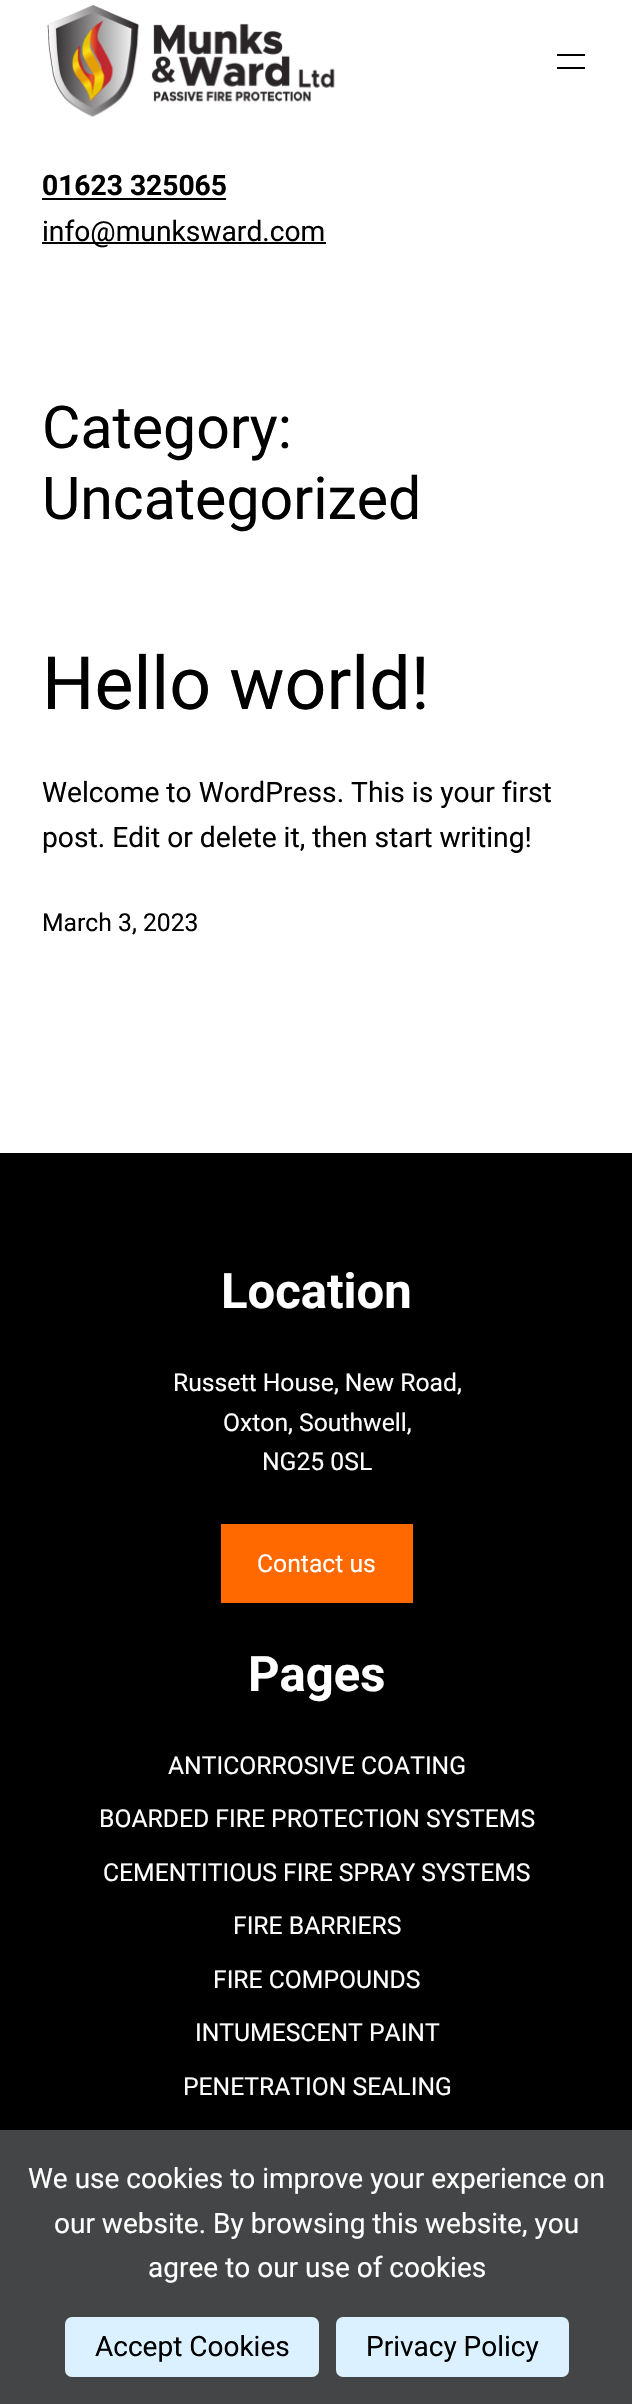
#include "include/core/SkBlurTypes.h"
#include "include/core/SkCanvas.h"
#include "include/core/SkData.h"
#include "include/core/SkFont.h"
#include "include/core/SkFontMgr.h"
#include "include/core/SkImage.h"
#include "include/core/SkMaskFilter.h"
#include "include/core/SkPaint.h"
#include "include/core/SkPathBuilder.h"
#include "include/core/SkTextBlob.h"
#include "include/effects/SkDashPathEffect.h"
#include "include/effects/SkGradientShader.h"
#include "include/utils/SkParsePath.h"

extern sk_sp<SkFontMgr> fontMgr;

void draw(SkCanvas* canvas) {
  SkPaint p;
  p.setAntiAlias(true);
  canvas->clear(SK_ColorWHITE);
  canvas->drawImageRect(SkImages::DeferredFromEncodedData(SkData::MakeFromFileName("images/1.png")), SkRect::MakeLTRB(47, 4, 335, 117), SkSamplingOptions());
  p.setColor(SK_ColorBLACK);
  canvas->drawRect(SkRect::MakeLTRB(557, 54, 585, 56), p);
  canvas->drawRect(SkRect::MakeLTRB(557, 67, 585, 69), p);
  canvas->drawRect(SkRect::MakeLTRB(42, 198, 226, 200), p);
  canvas->drawRect(SkRect::MakeLTRB(42, 242, 326, 244), p);
  canvas->drawRect(SkRect::MakeLTRB(0, 1153, 632, 2130), p);
  p.setColor(SkColorSetRGB(255, 105, 0));
  canvas->drawRect(SkRect::MakeLTRB(221, 1524, 413, 1603), p);
  p.setColor(SkColorSetRGB(68, 69, 70));
  canvas->drawRect(SkRect::MakeLTRB(0, 2130, 632, 2404), p);
  p.setColor(SkColorSetRGB(220, 241, 255));
  canvas->drawRoundRect(SkRect::MakeLTRB(65, 2317, 319, 2377), 7, 7, p);
  canvas->drawRoundRect(SkRect::MakeLTRB(336, 2317, 569, 2377), 7, 7, p);
  SkFont font1(fontMgr->matchFamilyStyle("Roboto", SkFontStyle::Bold()), 28.2f);
  font1.setSubpixel(true);
  p.setColor(SK_ColorBLACK);
  canvas->drawString("01623 325065", 42, 195, font1, p);
  SkFont font2(fontMgr->matchFamilyStyle("Roboto", SkFontStyle::Normal()), 28.2f);
  font2.setSubpixel(true);
  canvas->drawString("info@munksward.com", 42, 241, font2, p);
  SkFont font3(fontMgr->matchFamilyStyle("Roboto", SkFontStyle::Normal()), 59);
  font3.setSubpixel(true);
  canvas->drawString("Category:", 42, 448, font3, p);
  canvas->drawString("Uncategorized", 42, 519, font3, p);
  SkFont font4(fontMgr->matchFamilyStyle("Roboto", SkFontStyle::Normal()), 73.5f);
  font4.setSubpixel(true);
  canvas->drawString("Hello world!", 42, 709, font4, p);
  canvas->drawString("Welcome to WordPress. This is your first", 42, 802, font2, p);
  canvas->drawString("post. Edit or delete it, then start writing!", 42, 847, font2, p);
  SkFont font5(fontMgr->matchFamilyStyle("Roboto", SkFontStyle::Normal()), 24.7f);
  font5.setSubpixel(true);
  canvas->drawString("March 3, 2023", 42, 931, font5, p);
  SkFont font6(fontMgr->matchFamilyStyle("Roboto", SkFontStyle::Bold()), 49);
  font6.setSubpixel(true);
  p.setColor(SK_ColorWHITE);
  canvas->drawString("Location", 221, 1308, font6, p);
  canvas->drawString("Russett House, New Road,", 173, 1391, font5, p);
  canvas->drawString("Oxton, Southwell,", 223, 1431, font5, p);
  canvas->drawString("NG25 0SL", 262, 1470, font5, p);
  canvas->drawString("Contact us", 257, 1572, font5, p);
  canvas->drawString("Pages", 248, 1691, font6, p);
  canvas->drawString("ANTICORROSIVE COATING", 168, 1774, font5, p);
  canvas->drawString("BOARDED FIRE PROTECTION SYSTEMS", 99, 1827, font5, p);
  canvas->drawString("CEMENTITIOUS FIRE SPRAY SYSTEMS", 103, 1881, font5, p);
  canvas->drawString("FIRE BARRIERS", 233, 1934, font5, p);
  canvas->drawString("FIRE COMPOUNDS", 213, 1988, font5, p);
  canvas->drawString("INTUMESCENT PAINT", 195, 2041, font5, p);
  canvas->drawString("PENETRATION SEALING", 183, 2095, font5, p);
  SkFont font7(fontMgr->matchFamilyStyle("Roboto", SkFontStyle::Normal()), 28);
  font7.setSubpixel(true);
  canvas->drawString("We use cookies to improve your experience on", 28, 2188, font7, p);
  canvas->drawString("our website. By browsing this website, you", 54, 2233, font7, p);
  canvas->drawString("agree to our use of cookies", 148, 2277, font7, p);
  p.setColor(SK_ColorBLACK);
  canvas->drawString("Accept Cookies", 95, 2356, font7, p);
  canvas->drawString("Privacy Policy", 366, 2356, font7, p);
}
